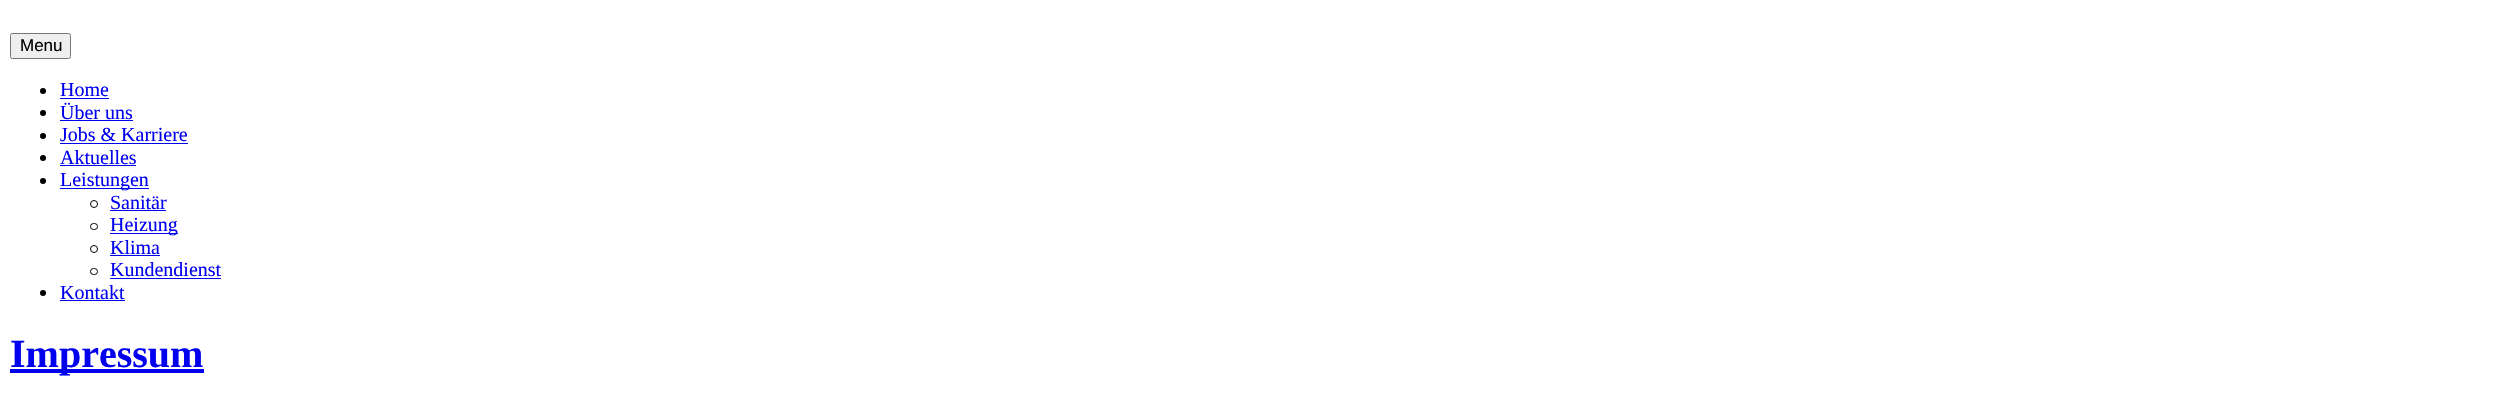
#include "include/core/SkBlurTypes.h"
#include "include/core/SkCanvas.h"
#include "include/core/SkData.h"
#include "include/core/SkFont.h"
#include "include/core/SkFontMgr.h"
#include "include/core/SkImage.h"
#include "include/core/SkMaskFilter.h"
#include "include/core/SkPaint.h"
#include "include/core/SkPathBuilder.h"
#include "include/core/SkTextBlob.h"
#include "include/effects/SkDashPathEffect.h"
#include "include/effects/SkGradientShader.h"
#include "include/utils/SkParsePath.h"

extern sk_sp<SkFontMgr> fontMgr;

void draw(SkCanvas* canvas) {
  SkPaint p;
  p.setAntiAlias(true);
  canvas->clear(SK_ColorWHITE);
  p.setColor(SkColorSetRGB(239, 239, 239));
  canvas->drawRoundRect(SkRect::MakeLTRB(10.5f, 33.5f, 70.5f, 58.5f), 2, 2, p);
  p.setStyle(SkPaint::kStroke_Style);
  p.setStrokeWidth(1);
  p.setColor(SkColorSetRGB(118, 118, 118));
  canvas->drawRoundRect(SkRect::MakeLTRB(10.5f, 33.5f, 70.5f, 58.5f), 2, 2, p);
  p.setStyle(SkPaint::kFill_Style);
  p.setColor(SK_ColorBLACK);
  canvas->drawCircle(43, 91, 3, p);
  p.setColor(SkColorSetRGB(0, 0, 238));
  canvas->drawRect(SkRect::MakeLTRB(60, 98, 109, 99), p);
  p.setColor(SK_ColorBLACK);
  canvas->drawCircle(43, 113, 3, p);
  p.setColor(SkColorSetRGB(0, 0, 238));
  canvas->drawRect(SkRect::MakeLTRB(60, 120, 133, 121), p);
  p.setColor(SK_ColorBLACK);
  canvas->drawCircle(43, 136, 3, p);
  p.setColor(SkColorSetRGB(0, 0, 238));
  canvas->drawRect(SkRect::MakeLTRB(60, 143, 188, 144), p);
  p.setColor(SK_ColorBLACK);
  canvas->drawCircle(43, 158, 3, p);
  p.setColor(SkColorSetRGB(0, 0, 238));
  canvas->drawRect(SkRect::MakeLTRB(60, 165, 136, 166), p);
  p.setColor(SK_ColorBLACK);
  canvas->drawCircle(43, 181, 3, p);
  p.setColor(SkColorSetRGB(0, 0, 238));
  canvas->drawRect(SkRect::MakeLTRB(60, 188, 149, 189), p);
  p.setStyle(SkPaint::kStroke_Style);
  p.setColor(SK_ColorBLACK);
  canvas->drawCircle(94, 204, 3.5f, p);
  p.setStyle(SkPaint::kFill_Style);
  p.setColor(SkColorSetRGB(0, 0, 238));
  canvas->drawRect(SkRect::MakeLTRB(110, 210, 166, 211), p);
  p.setStyle(SkPaint::kStroke_Style);
  p.setColor(SK_ColorBLACK);
  canvas->drawRoundRect(SkRect::MakeLTRB(90.5f, 223.5f, 97.5f, 229.5f), 3, 3, p);
  p.setStyle(SkPaint::kFill_Style);
  p.setColor(SkColorSetRGB(0, 0, 238));
  canvas->drawRect(SkRect::MakeLTRB(110, 233, 178, 234), p);
  p.setStyle(SkPaint::kStroke_Style);
  p.setColor(SK_ColorBLACK);
  canvas->drawCircle(94, 249, 3.5f, p);
  p.setStyle(SkPaint::kFill_Style);
  p.setColor(SkColorSetRGB(0, 0, 238));
  canvas->drawRect(SkRect::MakeLTRB(110, 255, 160, 256), p);
  p.setStyle(SkPaint::kStroke_Style);
  p.setColor(SK_ColorBLACK);
  canvas->drawRoundRect(SkRect::MakeLTRB(90.5f, 268.5f, 97.5f, 274.5f), 3, 3, p);
  p.setStyle(SkPaint::kFill_Style);
  p.setColor(SkColorSetRGB(0, 0, 238));
  canvas->drawRect(SkRect::MakeLTRB(110, 278, 221, 279), p);
  p.setColor(SK_ColorBLACK);
  canvas->drawCircle(43, 293, 3, p);
  p.setColor(SkColorSetRGB(0, 0, 238));
  canvas->drawRect(SkRect::MakeLTRB(60, 300, 125, 301), p);
  canvas->drawRect(SkRect::MakeLTRB(10, 369, 204, 373), p);
  SkFont font1(fontMgr->matchFamilyStyle("Liberation Sans", SkFontStyle::Normal()), 17);
  font1.setSubpixel(true);
  p.setColor(SK_ColorBLACK);
  canvas->drawString("Menu", 20, 51, font1, p);
  SkFont font2(fontMgr->matchFamilyStyle("Liberation Serif", SkFontStyle::Normal()), 20);
  font2.setSubpixel(true);
  p.setColor(SkColorSetRGB(0, 0, 238));
  canvas->drawString("Home", 60, 96, font2, p);
  canvas->drawString("Über uns", 60, 119, font2, p);
  canvas->drawString("Jobs & Karriere", 60, 141, font2, p);
  canvas->drawString("Aktuelles", 60, 164, font2, p);
  canvas->drawString("Leistungen", 60, 186, font2, p);
  canvas->drawString("Sanitär", 110, 209, font2, p);
  canvas->drawString("Heizung", 110, 231, font2, p);
  canvas->drawString("Klima", 110, 254, font2, p);
  canvas->drawString("Kundendienst", 110, 276, font2, p);
  canvas->drawString("Kontakt", 60, 299, font2, p);
  SkFont font3(fontMgr->matchFamilyStyle("Liberation Serif", SkFontStyle::Bold()), 40);
  font3.setSubpixel(true);
  canvas->drawString("Impressum", 10, 367, font3, p);
}
